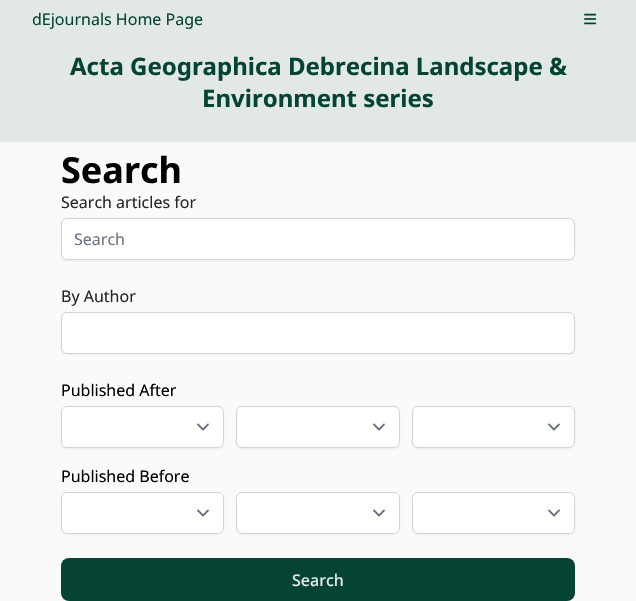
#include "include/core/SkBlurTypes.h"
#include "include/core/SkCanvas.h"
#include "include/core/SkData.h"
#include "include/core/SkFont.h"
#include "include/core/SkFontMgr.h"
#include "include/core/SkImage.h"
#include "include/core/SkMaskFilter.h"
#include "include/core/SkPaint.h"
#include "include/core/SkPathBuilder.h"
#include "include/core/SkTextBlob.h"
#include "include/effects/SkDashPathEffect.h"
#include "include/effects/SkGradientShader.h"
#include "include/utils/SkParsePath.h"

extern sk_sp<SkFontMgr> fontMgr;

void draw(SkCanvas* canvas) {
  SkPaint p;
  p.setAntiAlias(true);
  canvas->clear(SkColorSetRGB(250, 250, 249));
  p.setColor(SkColorSetRGB(225, 232, 230));
  canvas->drawRect(SkRect::MakeLTRB(0, 0, 636, 142), p);
  canvas->drawImageRect(SkImages::DeferredFromEncodedData(SkData::MakeFromFileName("images/1.png")), SkRect::MakeLTRB(584, 13, 597, 25), SkSamplingOptions());
  p.setColor(SkColorSetARGB(13, 0, 0, 0));
  p.setMaskFilter(SkMaskFilter::MakeBlur(kNormal_SkBlurStyle, 1));
  canvas->drawRoundRect(SkRect::MakeLTRB(61, 219, 575, 261), 6, 6, p);
  p.setMaskFilter(nullptr);
  p.setColor(SK_ColorWHITE);
  canvas->drawRoundRect(SkRect::MakeLTRB(61.5f, 218.5f, 574.5f, 259.5f), 5.5f, 5.5f, p);
  p.setStyle(SkPaint::kStroke_Style);
  p.setStrokeWidth(1);
  p.setColor(SkColorSetRGB(214, 211, 209));
  canvas->drawRoundRect(SkRect::MakeLTRB(61.5f, 218.5f, 574.5f, 259.5f), 5.5f, 5.5f, p);
  p.setStyle(SkPaint::kFill_Style);
  p.setColor(SkColorSetARGB(13, 0, 0, 0));
  p.setMaskFilter(SkMaskFilter::MakeBlur(kNormal_SkBlurStyle, 1));
  canvas->drawRoundRect(SkRect::MakeLTRB(61, 313, 575, 355), 6, 6, p);
  p.setMaskFilter(nullptr);
  p.setColor(SK_ColorWHITE);
  canvas->drawRoundRect(SkRect::MakeLTRB(61.5f, 312.5f, 574.5f, 353.5f), 5.5f, 5.5f, p);
  p.setStyle(SkPaint::kStroke_Style);
  p.setColor(SkColorSetRGB(214, 211, 209));
  canvas->drawRoundRect(SkRect::MakeLTRB(61.5f, 312.5f, 574.5f, 353.5f), 5.5f, 5.5f, p);
  p.setStyle(SkPaint::kFill_Style);
  p.setColor(SkColorSetARGB(13, 0, 0, 0));
  p.setMaskFilter(SkMaskFilter::MakeBlur(kNormal_SkBlurStyle, 1));
  canvas->drawRoundRect(SkRect::MakeLTRB(61, 407, 224, 449), 6, 6, p);
  p.setMaskFilter(nullptr);
  p.setColor(SK_ColorWHITE);
  canvas->drawRoundRect(SkRect::MakeLTRB(61, 406, 224, 448), 6, 6, p);
  p.setStyle(SkPaint::kStroke_Style);
  p.setStrokeWidth(1.8f);
  p.setStrokeCap(SkPaint::kRound_Cap);
  p.setStrokeJoin(SkPaint::kRound_Join);
  p.setColor(SkColorSetRGB(107, 114, 128));
  canvas->drawPath(SkPathBuilder().moveTo(198, 424.5f).lineTo(203, 429.5f).lineTo(208, 424.5f).detach(), p);
  p.setStrokeWidth(1);
  p.setStrokeCap(SkPaint::kButt_Cap);
  p.setStrokeJoin(SkPaint::kMiter_Join);
  p.setColor(SkColorSetRGB(214, 211, 209));
  canvas->drawRoundRect(SkRect::MakeLTRB(61.5f, 406.5f, 223.5f, 447.5f), 5.5f, 5.5f, p);
  p.setStyle(SkPaint::kFill_Style);
  p.setColor(SkColorSetARGB(13, 0, 0, 0));
  p.setMaskFilter(SkMaskFilter::MakeBlur(kNormal_SkBlurStyle, 1));
  canvas->drawRoundRect(SkRect::MakeLTRB(236, 407, 400, 449), 6, 6, p);
  p.setMaskFilter(nullptr);
  p.setColor(SK_ColorWHITE);
  canvas->drawRoundRect(SkRect::MakeLTRB(236, 406, 400, 448), 6, 6, p);
  p.setStyle(SkPaint::kStroke_Style);
  p.setStrokeWidth(1.8f);
  p.setStrokeCap(SkPaint::kRound_Cap);
  p.setStrokeJoin(SkPaint::kRound_Join);
  p.setColor(SkColorSetRGB(107, 114, 128));
  canvas->drawPath(SkPathBuilder().moveTo(374, 424.5f).lineTo(379, 429.5f).lineTo(384, 424.5f).detach(), p);
  p.setStrokeWidth(1);
  p.setStrokeCap(SkPaint::kButt_Cap);
  p.setStrokeJoin(SkPaint::kMiter_Join);
  p.setColor(SkColorSetRGB(214, 211, 209));
  canvas->drawRoundRect(SkRect::MakeLTRB(236.5f, 406.5f, 399.5f, 447.5f), 5.5f, 5.5f, p);
  p.setStyle(SkPaint::kFill_Style);
  p.setColor(SkColorSetARGB(13, 0, 0, 0));
  p.setMaskFilter(SkMaskFilter::MakeBlur(kNormal_SkBlurStyle, 1));
  canvas->drawRoundRect(SkRect::MakeLTRB(412, 407, 575, 449), 6, 6, p);
  p.setMaskFilter(nullptr);
  p.setColor(SK_ColorWHITE);
  canvas->drawRoundRect(SkRect::MakeLTRB(412, 406, 575, 448), 6, 6, p);
  p.setStyle(SkPaint::kStroke_Style);
  p.setStrokeWidth(1.8f);
  p.setStrokeCap(SkPaint::kRound_Cap);
  p.setStrokeJoin(SkPaint::kRound_Join);
  p.setColor(SkColorSetRGB(107, 114, 128));
  canvas->drawPath(SkPathBuilder().moveTo(549, 424.5f).lineTo(554, 429.5f).lineTo(559, 424.5f).detach(), p);
  p.setStrokeWidth(1);
  p.setStrokeCap(SkPaint::kButt_Cap);
  p.setStrokeJoin(SkPaint::kMiter_Join);
  p.setColor(SkColorSetRGB(214, 211, 209));
  canvas->drawRoundRect(SkRect::MakeLTRB(412.5f, 406.5f, 574.5f, 447.5f), 5.5f, 5.5f, p);
  p.setStyle(SkPaint::kFill_Style);
  p.setColor(SkColorSetARGB(13, 0, 0, 0));
  p.setMaskFilter(SkMaskFilter::MakeBlur(kNormal_SkBlurStyle, 1));
  canvas->drawRoundRect(SkRect::MakeLTRB(61, 493, 224, 535), 6, 6, p);
  p.setMaskFilter(nullptr);
  p.setColor(SK_ColorWHITE);
  canvas->drawRoundRect(SkRect::MakeLTRB(61, 492, 224, 534), 6, 6, p);
  p.setStyle(SkPaint::kStroke_Style);
  p.setStrokeWidth(1.8f);
  p.setStrokeCap(SkPaint::kRound_Cap);
  p.setStrokeJoin(SkPaint::kRound_Join);
  p.setColor(SkColorSetRGB(107, 114, 128));
  canvas->drawPath(SkPathBuilder().moveTo(198, 510.5f).lineTo(203, 515.5f).lineTo(208, 510.5f).detach(), p);
  p.setStrokeWidth(1);
  p.setStrokeCap(SkPaint::kButt_Cap);
  p.setStrokeJoin(SkPaint::kMiter_Join);
  p.setColor(SkColorSetRGB(214, 211, 209));
  canvas->drawRoundRect(SkRect::MakeLTRB(61.5f, 492.5f, 223.5f, 533.5f), 5.5f, 5.5f, p);
  p.setStyle(SkPaint::kFill_Style);
  p.setColor(SkColorSetARGB(13, 0, 0, 0));
  p.setMaskFilter(SkMaskFilter::MakeBlur(kNormal_SkBlurStyle, 1));
  canvas->drawRoundRect(SkRect::MakeLTRB(236, 493, 400, 535), 6, 6, p);
  p.setMaskFilter(nullptr);
  p.setColor(SK_ColorWHITE);
  canvas->drawRoundRect(SkRect::MakeLTRB(236, 492, 400, 534), 6, 6, p);
  p.setStyle(SkPaint::kStroke_Style);
  p.setStrokeWidth(1.8f);
  p.setStrokeCap(SkPaint::kRound_Cap);
  p.setStrokeJoin(SkPaint::kRound_Join);
  p.setColor(SkColorSetRGB(107, 114, 128));
  canvas->drawPath(SkPathBuilder().moveTo(374, 510.5f).lineTo(379, 515.5f).lineTo(384, 510.5f).detach(), p);
  p.setStrokeWidth(1);
  p.setStrokeCap(SkPaint::kButt_Cap);
  p.setStrokeJoin(SkPaint::kMiter_Join);
  p.setColor(SkColorSetRGB(214, 211, 209));
  canvas->drawRoundRect(SkRect::MakeLTRB(236.5f, 492.5f, 399.5f, 533.5f), 5.5f, 5.5f, p);
  p.setStyle(SkPaint::kFill_Style);
  p.setColor(SkColorSetARGB(13, 0, 0, 0));
  p.setMaskFilter(SkMaskFilter::MakeBlur(kNormal_SkBlurStyle, 1));
  canvas->drawRoundRect(SkRect::MakeLTRB(412, 493, 575, 535), 6, 6, p);
  p.setMaskFilter(nullptr);
  p.setColor(SK_ColorWHITE);
  canvas->drawRoundRect(SkRect::MakeLTRB(412, 492, 575, 534), 6, 6, p);
  p.setStyle(SkPaint::kStroke_Style);
  p.setStrokeWidth(1.8f);
  p.setStrokeCap(SkPaint::kRound_Cap);
  p.setStrokeJoin(SkPaint::kRound_Join);
  p.setColor(SkColorSetRGB(107, 114, 128));
  canvas->drawPath(SkPathBuilder().moveTo(549, 510.5f).lineTo(554, 515.5f).lineTo(559, 510.5f).detach(), p);
  p.setStrokeWidth(1);
  p.setStrokeCap(SkPaint::kButt_Cap);
  p.setStrokeJoin(SkPaint::kMiter_Join);
  p.setColor(SkColorSetRGB(214, 211, 209));
  canvas->drawRoundRect(SkRect::MakeLTRB(412.5f, 492.5f, 574.5f, 533.5f), 5.5f, 5.5f, p);
  p.setStyle(SkPaint::kFill_Style);
  p.setColor(SkColorSetRGB(5, 68, 52));
  canvas->drawRoundRect(SkRect::MakeLTRB(61, 558, 575, 601), 8, 8, p);
  SkFont font1(fontMgr->matchFamilyStyle("Noto Sans", SkFontStyle::Normal()), 16);
  font1.setSubpixel(true);
  canvas->drawString("dEjournals Home Page", 32, 25, font1, p);
  SkFont font2(fontMgr->matchFamilyStyle("Noto Sans", SkFontStyle::Bold()), 24);
  font2.setSubpixel(true);
  canvas->drawString("Acta Geographica Debrecina Landscape &", 70, 75, font2, p);
  canvas->drawString("Environment series", 202, 107, font2, p);
  SkFont font3(fontMgr->matchFamilyStyle("Noto Sans", SkFontStyle::Bold()), 36);
  font3.setSubpixel(true);
  p.setColor(SK_ColorBLACK);
  canvas->drawString("Search", 61, 183, font3, p);
  p.setColor(SkColorSetRGB(41, 37, 36));
  canvas->drawString("Search articles for", 61, 208, font1, p);
  p.setColor(SkColorSetRGB(107, 114, 128));
  canvas->drawString("Search", 74, 245, font1, p);
  p.setColor(SkColorSetRGB(41, 37, 36));
  canvas->drawString("By Author", 61, 302, font1, p);
  p.setColor(SK_ColorBLACK);
  canvas->drawString("Published After", 61, 396, font1, p);
  canvas->drawString("Published Before", 61, 482, font1, p);
  SkFont font4(fontMgr->matchFamilyStyle("Noto Sans", SkFontStyle(500, SkFontStyle::kNormal_Width, SkFontStyle::kUpright_Slant)), 16);
  font4.setSubpixel(true);
  p.setColor(SkColorSetRGB(225, 232, 230));
  canvas->drawString("Search", 292, 586, font4, p);
}
